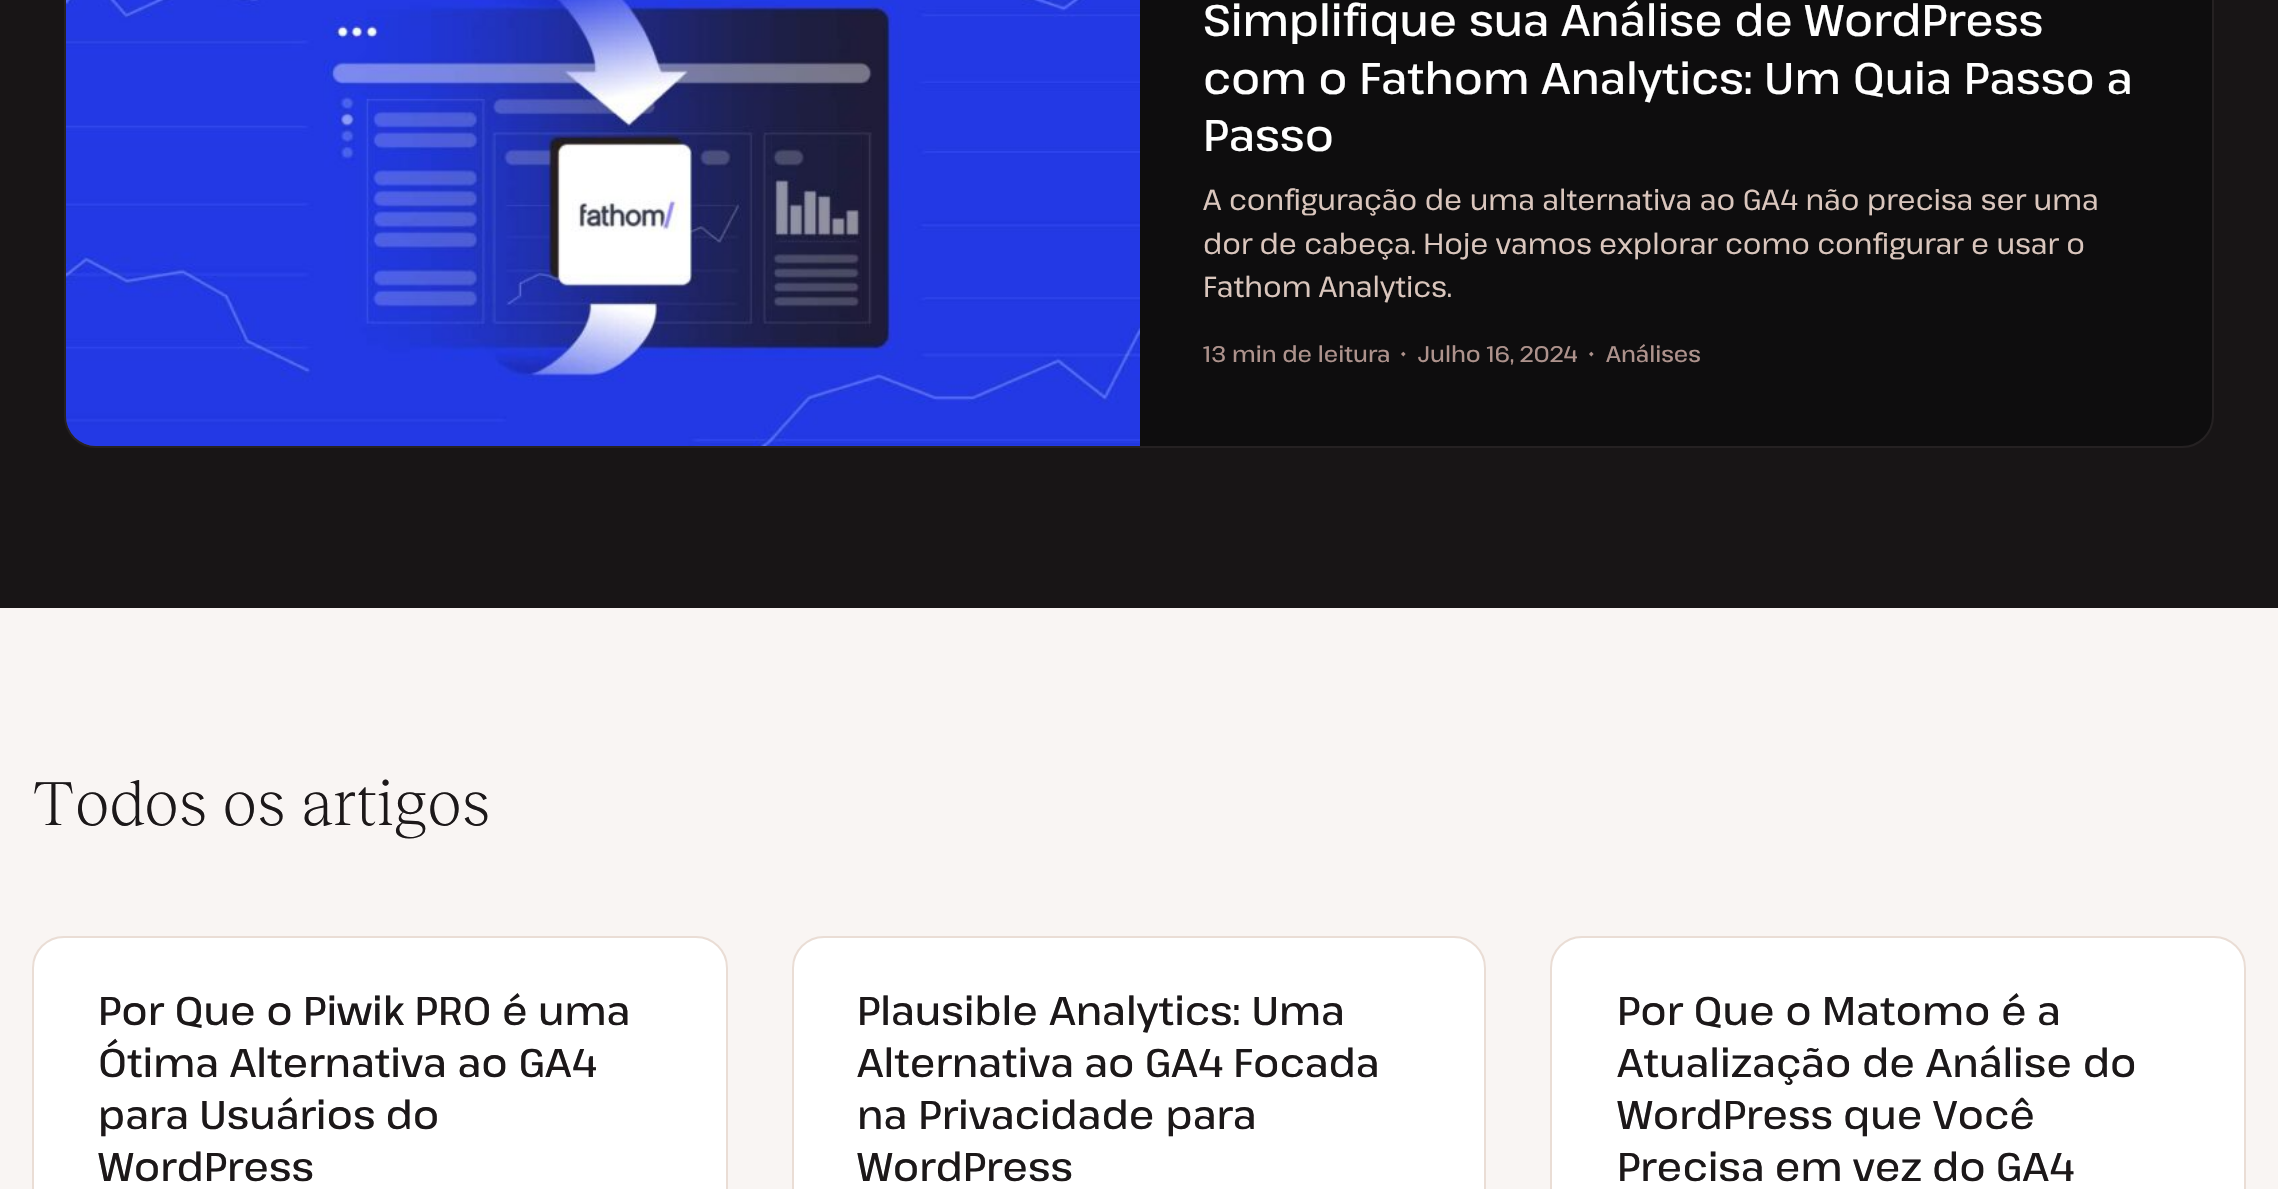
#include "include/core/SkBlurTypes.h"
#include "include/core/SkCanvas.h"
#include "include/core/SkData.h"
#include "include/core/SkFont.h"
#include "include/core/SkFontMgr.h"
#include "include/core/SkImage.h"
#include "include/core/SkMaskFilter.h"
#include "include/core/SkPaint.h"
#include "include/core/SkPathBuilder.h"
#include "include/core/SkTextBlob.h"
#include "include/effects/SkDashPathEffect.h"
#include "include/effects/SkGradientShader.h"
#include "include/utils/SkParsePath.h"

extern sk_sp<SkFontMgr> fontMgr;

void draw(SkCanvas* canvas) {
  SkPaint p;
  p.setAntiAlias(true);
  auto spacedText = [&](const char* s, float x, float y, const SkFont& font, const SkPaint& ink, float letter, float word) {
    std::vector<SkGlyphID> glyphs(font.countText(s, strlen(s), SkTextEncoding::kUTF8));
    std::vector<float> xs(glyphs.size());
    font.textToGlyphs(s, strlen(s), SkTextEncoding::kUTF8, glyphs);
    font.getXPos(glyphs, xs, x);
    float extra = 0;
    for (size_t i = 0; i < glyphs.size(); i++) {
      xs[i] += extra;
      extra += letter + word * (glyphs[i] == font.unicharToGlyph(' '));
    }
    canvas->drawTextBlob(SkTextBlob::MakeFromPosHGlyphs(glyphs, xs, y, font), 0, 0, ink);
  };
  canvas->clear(SkColorSetRGB(249, 245, 243));
  p.setColor(SkColorSetRGB(24, 21, 22));
  canvas->drawRect(SkRect::MakeLTRB(0, 0, 2278, 608), p);
  p.setColor(SkColorSetRGB(14, 13, 14));
  canvas->drawRoundRect(SkRect::MakeLTRB(65, -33, 2213, 447), 31, 31, p);
  p.setStyle(SkPaint::kStroke_Style);
  p.setStrokeWidth(2);
  p.setColor(SkColorSetRGB(37, 33, 34));
  canvas->drawRoundRect(SkRect::MakeLTRB(65, -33, 2213, 447), 31, 31, p);
  p.setStyle(SkPaint::kFill_Style);
  p.setColor(SkColorSetRGB(69, 61, 62));
  canvas->drawPath(SkPathBuilder().moveTo(96, -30).lineTo(1140, -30).lineTo(1140, 446).lineTo(96, 446).cubicTo(79.5f, 446, 66, 432.5f, 66, 416).lineTo(66, 0).cubicTo(66, -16.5f, 79.5f, -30, 96, -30).close().detach(), p);
  canvas->drawImageRect(SkImages::DeferredFromEncodedData(SkData::MakeFromFileName("images/1.png")), SkRect::MakeLTRB(66, 0, 1140, 446), SkSamplingOptions());
  p.setColor(SK_ColorWHITE);
  canvas->drawRoundRect(SkRect::MakeLTRB(33, 937, 727, 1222), 31, 31, p);
  p.setStyle(SkPaint::kStroke_Style);
  p.setColor(SkColorSetRGB(234, 221, 213));
  canvas->drawRoundRect(SkRect::MakeLTRB(33, 937, 727, 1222), 31, 31, p);
  p.setStyle(SkPaint::kFill_Style);
  p.setColor(SK_ColorWHITE);
  canvas->drawRoundRect(SkRect::MakeLTRB(793, 937, 1485, 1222), 31, 31, p);
  p.setStyle(SkPaint::kStroke_Style);
  p.setColor(SkColorSetRGB(234, 221, 213));
  canvas->drawRoundRect(SkRect::MakeLTRB(793, 937, 1485, 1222), 31, 31, p);
  p.setStyle(SkPaint::kFill_Style);
  p.setColor(SK_ColorWHITE);
  canvas->drawRoundRect(SkRect::MakeLTRB(1551, 937, 2245, 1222), 31, 31, p);
  p.setStyle(SkPaint::kStroke_Style);
  p.setColor(SkColorSetRGB(234, 221, 213));
  canvas->drawRoundRect(SkRect::MakeLTRB(1551, 937, 2245, 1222), 31, 31, p);
  SkFont font1(fontMgr->matchFamilyStyle("Pathway Extreme", SkFontStyle(500, SkFontStyle::kNormal_Width, SkFontStyle::kUpright_Slant)), 44.2f);
  font1.setSubpixel(true);
  p.setStyle(SkPaint::kFill_Style);
  p.setColor(SK_ColorWHITE);
  spacedText("Simplifique sua Análise de WordPress", 1203, 36, font1, p, 0, 0.5f);
  spacedText("com o Fathom Analytics: Um Quia Passo a", 1203, 94, font1, p, 0, 0.5f);
  canvas->drawString("Passo", 1203, 151, font1, p);
  SkFont font2(fontMgr->matchFamilyStyle("Pathway Extreme", SkFontStyle::Normal()), 28.8f);
  font2.setSubpixel(true);
  p.setColor(SkColorSetRGB(218, 198, 189));
  spacedText("A configuração de uma alternativa ao GA4 não precisa ser uma", 1203, 210, font2, p, 0, 0.25f);
  canvas->drawString("dor de cabeça. Hoje vamos explorar como configurar e usar o", 1203, 254, font2, p);
  canvas->drawString("Fathom Analytics.", 1203, 297, font2, p);
  SkFont font3(fontMgr->matchFamilyStyle("Pathway Extreme", SkFontStyle(500, SkFontStyle::kNormal_Width, SkFontStyle::kUpright_Slant)), 22.5f);
  font3.setSubpixel(true);
  p.setColor(SkColorSetRGB(173, 146, 140));
  canvas->drawString("13 min de leitura", 1203, 362, font3, p);
  canvas->drawString("•", 1400, 362, font3, p);
  canvas->drawString("Julho 16, 2024", 1418, 362, font3, p);
  canvas->drawString("•", 1588, 362, font3, p);
  canvas->drawString("Análises", 1606, 362, font3, p);
  SkFont font4(fontMgr->matchFamilyStyle("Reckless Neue", SkFontStyle(300, SkFontStyle::kNormal_Width, SkFontStyle::kUpright_Slant)), 64);
  font4.setSubpixel(true);
  p.setColor(SkColorSetRGB(28, 24, 25));
  canvas->drawString("Todos os artigos", 32, 825, font4, p);
  SkFont font5(fontMgr->matchFamilyStyle("Pathway Extreme", SkFontStyle(500, SkFontStyle::kNormal_Width, SkFontStyle::kUpright_Slant)), 40);
  font5.setSubpixel(true);
  spacedText("Por Que o Piwik PRO é uma", 98, 1025, font5, p, 0, 0.25f);
  spacedText("Ótima Alternativa ao GA4", 98, 1077, font5, p, 0, 0.5f);
  canvas->drawString("para Usuários do", 98, 1129, font5, p);
  canvas->drawString("WordPress", 98, 1181, font5, p);
  spacedText("Plausible Analytics: Uma", 857, 1025, font5, p, 0, 1);
  canvas->drawString("Alternativa ao GA4 Focada", 857, 1077, font5, p);
  spacedText("na Privacidade para", 857, 1129, font5, p, 0, 1);
  canvas->drawString("WordPress", 857, 1181, font5, p);
  spacedText("Por Que o Matomo é a", 1617, 1025, font5, p, 0, 0.25f);
  spacedText("Atualização de Análise do", 1617, 1077, font5, p, 0, 0.5f);
  canvas->drawString("WordPress que Você", 1617, 1129, font5, p);
  canvas->drawString("Precisa em vez do GA4", 1617, 1181, font5, p);
}
